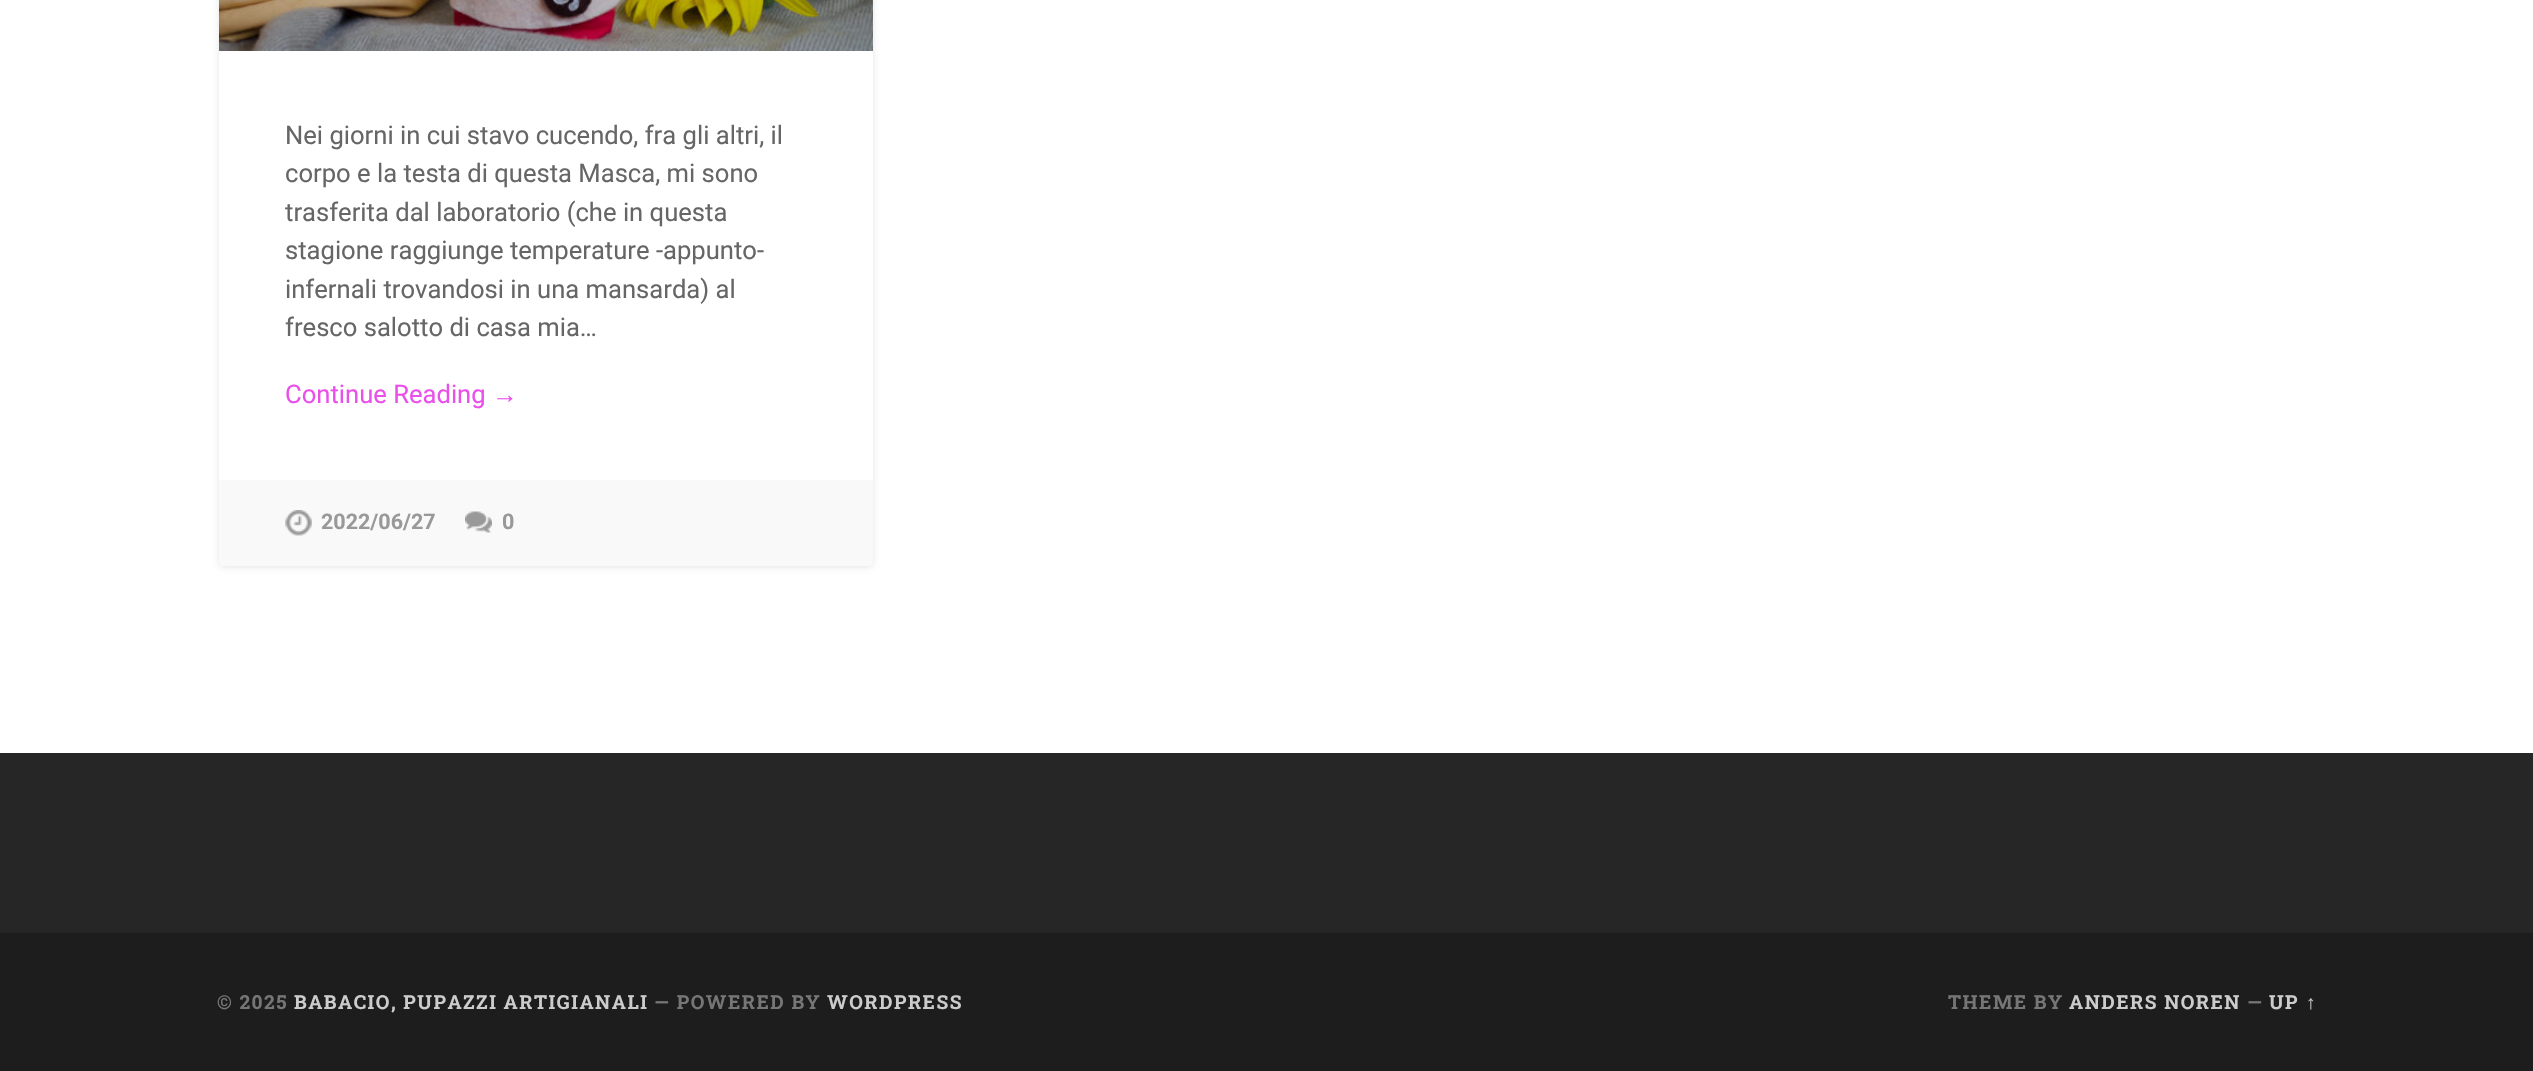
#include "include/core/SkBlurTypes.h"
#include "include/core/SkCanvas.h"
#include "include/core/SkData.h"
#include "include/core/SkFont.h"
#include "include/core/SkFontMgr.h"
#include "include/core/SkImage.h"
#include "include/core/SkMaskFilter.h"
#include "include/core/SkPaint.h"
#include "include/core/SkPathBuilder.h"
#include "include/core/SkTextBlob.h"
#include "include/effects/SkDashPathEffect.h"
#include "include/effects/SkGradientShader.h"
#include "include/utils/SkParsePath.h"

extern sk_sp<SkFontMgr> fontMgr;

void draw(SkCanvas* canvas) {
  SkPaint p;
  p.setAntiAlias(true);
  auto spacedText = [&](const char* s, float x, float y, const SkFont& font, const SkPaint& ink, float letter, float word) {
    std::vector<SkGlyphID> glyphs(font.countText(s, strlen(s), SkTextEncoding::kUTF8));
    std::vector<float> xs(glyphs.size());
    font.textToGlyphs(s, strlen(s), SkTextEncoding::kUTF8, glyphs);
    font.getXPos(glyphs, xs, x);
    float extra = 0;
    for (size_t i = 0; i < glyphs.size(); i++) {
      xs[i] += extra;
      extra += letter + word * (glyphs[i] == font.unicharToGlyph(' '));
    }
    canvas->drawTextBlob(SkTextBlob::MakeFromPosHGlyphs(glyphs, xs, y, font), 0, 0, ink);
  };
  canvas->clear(SK_ColorWHITE);
  p.setColor(SkColorSetARGB(26, 0, 0, 0));
  p.setMaskFilter(SkMaskFilter::MakeBlur(kNormal_SkBlurStyle, 3));
  canvas->drawRoundRect(SkRect::MakeLTRB(219, -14, 873, 567), 5, 5, p);
  p.setMaskFilter(nullptr);
  p.setColor(SK_ColorWHITE);
  canvas->drawRoundRect(SkRect::MakeLTRB(219, -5, 873, 566), 5, 5, p);
  canvas->drawImageRect(SkImages::DeferredFromEncodedData(SkData::MakeFromFileName("images/1.png")), SkRect::MakeLTRB(219, 0, 873, 51), SkSamplingOptions());
  p.setColor(SkColorSetRGB(249, 249, 249));
  canvas->drawPath(SkPathBuilder().moveTo(219, 480).lineTo(873, 480).lineTo(873, 561).cubicTo(873, 564, 871, 566, 868, 566).lineTo(224, 566).cubicTo(221, 566, 219, 564, 219, 561).close().detach(), p);
  canvas->drawImageRect(SkImages::DeferredFromEncodedData(SkData::MakeFromFileName("images/2.png")), SkRect::MakeLTRB(285, 510, 312, 536), SkSamplingOptions());
  canvas->drawImageRect(SkImages::DeferredFromEncodedData(SkData::MakeFromFileName("images/3.png")), SkRect::MakeLTRB(465, 511, 492, 533), SkSamplingOptions());
  p.setColor(SkColorSetRGB(38, 38, 38));
  canvas->drawRect(SkRect::MakeLTRB(0, 753, 2533, 933), p);
  p.setColor(SkColorSetRGB(29, 29, 29));
  canvas->drawRect(SkRect::MakeLTRB(0, 933, 2533, 1071), p);
  SkFont font1(fontMgr->matchFamilyStyle("Roboto", SkFontStyle::Normal()), 25.6f);
  font1.setSubpixel(true);
  p.setColor(SkColorSetRGB(102, 102, 102));
  canvas->drawString("Nei giorni in cui stavo cucendo, fra gli altri, il", 285, 144, font1, p);
  canvas->drawString("corpo e la testa di questa Masca, mi sono", 285, 182, font1, p);
  canvas->drawString("trasferita dal laboratorio (che in questa", 285, 221, font1, p);
  canvas->drawString("stagione raggiunge temperature -appunto-", 285, 259, font1, p);
  canvas->drawString("infernali trovandosi in una mansarda) al", 285, 298, font1, p);
  canvas->drawString("fresco salotto di casa mia…", 285, 336, font1, p);
  p.setColor(SkColorSetRGB(234, 79, 233));
  canvas->drawString("Continue Reading", 285, 403, font1, p);
  SkFont font2(fontMgr->matchFamilyStyle("Liberation Sans", SkFontStyle::Normal()), 25.6f);
  font2.setSubpixel(true);
  canvas->drawString("→", 492, 403, font2, p);
  SkFont font3(fontMgr->matchFamilyStyle("Roboto", SkFontStyle::Bold()), 21.5f);
  font3.setSubpixel(true);
  p.setColor(SkColorSetRGB(153, 153, 153));
  canvas->drawString("2022/06/27", 321, 529, font3, p);
  canvas->drawString("0", 502, 529, font3, p);
  SkFont font4(fontMgr->matchFamilyStyle("Roboto Slab", SkFontStyle::Bold()), 19.25f);
  font4.setSubpixel(true);
  p.setColor(SkColorSetRGB(118, 118, 118));
  spacedText("© 2025", 217, 1009, font4, p, 1.5f, 0);
  p.setColor(SkColorSetRGB(204, 204, 204));
  spacedText("BABACIO, PUPAZZI ARTIGIANALI", 294, 1009, font4, p, 1.5f, 0);
  p.setColor(SkColorSetRGB(118, 118, 118));
  spacedText("— POWERED BY", 654, 1009, font4, p, 1.5f, 0);
  p.setColor(SkColorSetRGB(204, 204, 204));
  spacedText("WORDPRESS", 827, 1009, font4, p, 1.5f, 0);
  p.setColor(SkColorSetRGB(118, 118, 118));
  spacedText("THEME BY", 1948, 1009, font4, p, 1.5f, 0);
  p.setColor(SkColorSetRGB(204, 204, 204));
  spacedText("ANDERS NOREN", 2069, 1009, font4, p, 1.5f, 0);
  p.setColor(SkColorSetRGB(118, 118, 118));
  spacedText("—", 2247, 1009, font4, p, 1.5f, 0);
  p.setColor(SkColorSetRGB(204, 204, 204));
  spacedText("UP", 2269, 1009, font4, p, 1.5f, 0);
  SkFont font5(fontMgr->matchFamilyStyle("Liberation Sans", SkFontStyle::Bold()), 19.25f);
  font5.setSubpixel(true);
  spacedText("↑", 2306, 1009, font5, p, 1.5f, 0);
}
